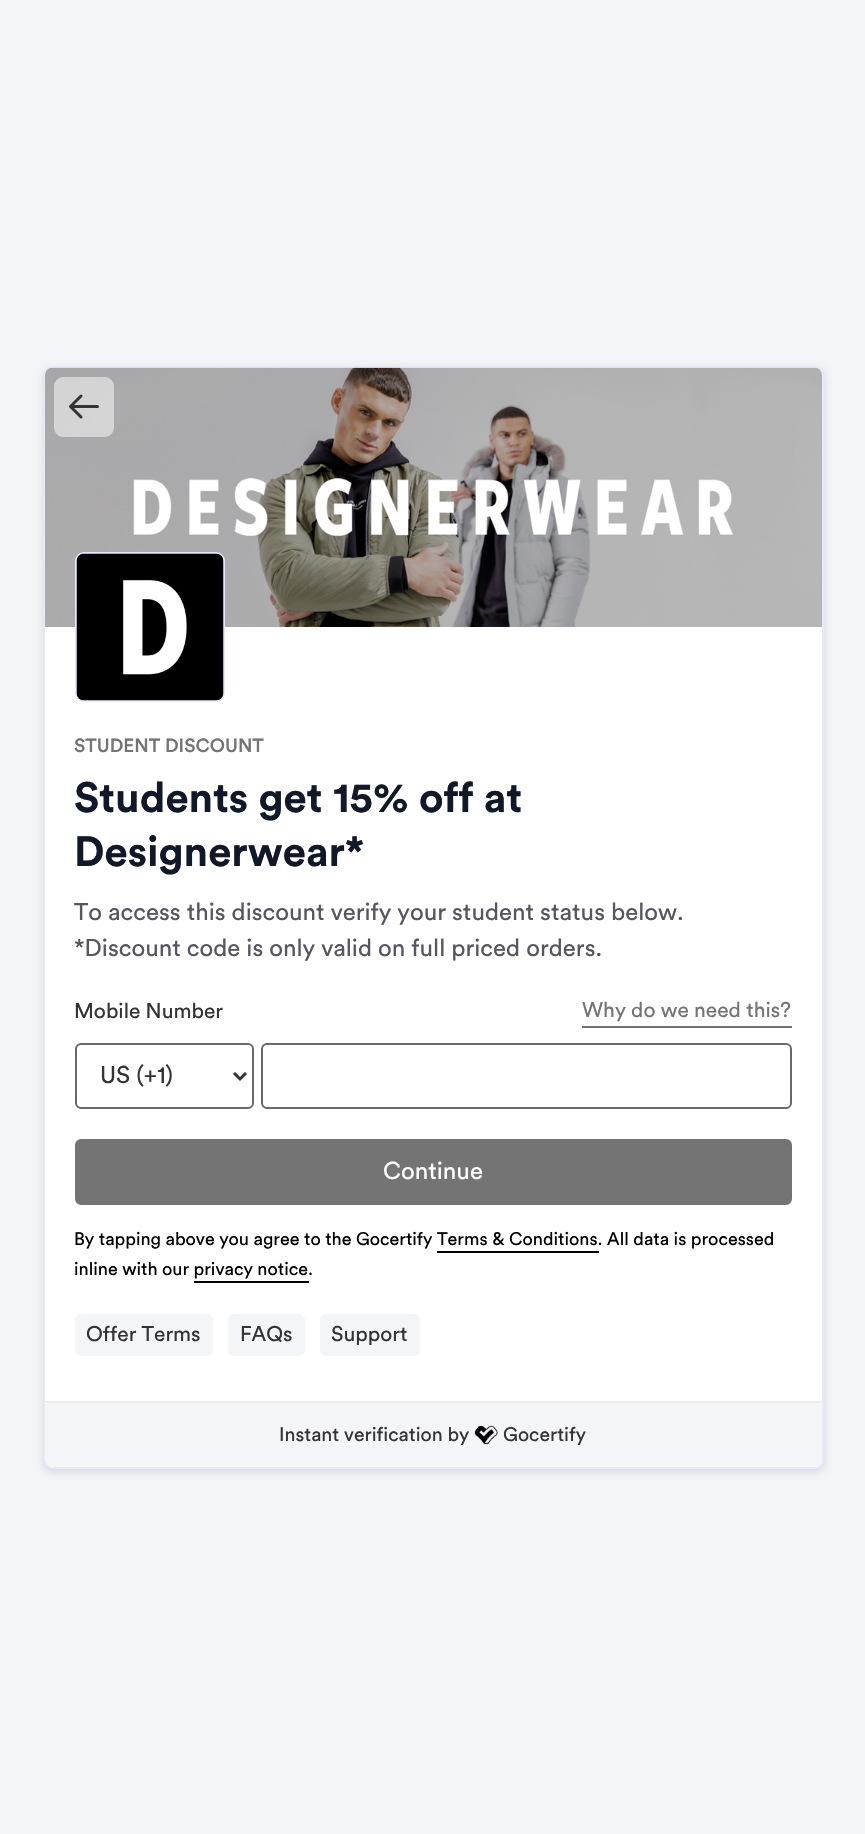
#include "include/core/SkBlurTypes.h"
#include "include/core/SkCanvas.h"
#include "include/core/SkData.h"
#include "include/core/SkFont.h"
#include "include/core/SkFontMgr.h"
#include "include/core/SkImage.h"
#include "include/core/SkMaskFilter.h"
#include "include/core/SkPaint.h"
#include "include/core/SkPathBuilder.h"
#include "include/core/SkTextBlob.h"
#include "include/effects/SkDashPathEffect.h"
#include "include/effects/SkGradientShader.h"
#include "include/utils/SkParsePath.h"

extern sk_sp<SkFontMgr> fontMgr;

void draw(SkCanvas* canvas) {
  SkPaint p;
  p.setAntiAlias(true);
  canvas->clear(SkColorSetRGB(244, 245, 247));
  p.setColor(SkColorSetARGB(33, 0, 0, 0));
  p.setMaskFilter(SkMaskFilter::MakeBlur(kNormal_SkBlurStyle, 4.5f));
  canvas->drawRoundRect(SkRect::MakeLTRB(44, 369, 824, 1472), 9, 9, p);
  p.setMaskFilter(nullptr);
  p.setColor(SK_ColorWHITE);
  canvas->drawRoundRect(SkRect::MakeLTRB(45, 367, 823, 1468), 8, 8, p);
  p.setStyle(SkPaint::kStroke_Style);
  p.setStrokeWidth(2);
  p.setColor(SkColorSetRGB(231, 232, 255));
  canvas->drawRoundRect(SkRect::MakeLTRB(45, 367, 823, 1468), 8, 8, p);
  canvas->save();
  canvas->clipPath(SkPathBuilder().moveTo(53, 368).lineTo(814, 368).cubicTo(818.5f, 368, 822, 371.5f, 822, 376).lineTo(822, 1459).cubicTo(822, 1463.5f, 818.5f, 1467, 814, 1467).lineTo(53, 1467).cubicTo(48.5f, 1467, 45, 1463.5f, 45, 1459).lineTo(45, 376).cubicTo(45, 371.5f, 48.5f, 368, 53, 368).close().detach(), true);
  p.setStyle(SkPaint::kFill_Style);
  p.setColor(SK_ColorWHITE);
  canvas->drawRoundRect(SkRect::MakeLTRB(45, 368, 822, 1467), 9, 9, p);
  canvas->restore();
  canvas->drawImageRect(SkImages::DeferredFromEncodedData(SkData::MakeFromFileName("images/1.png")), SkRect::MakeLTRB(45, 367, 822, 627), SkSamplingOptions());
  p.setColor(SkColorSetARGB(128, 255, 255, 255));
  canvas->drawRoundRect(SkRect::MakeLTRB(54, 377, 114, 437), 9, 9, p);
  p.setStyle(SkPaint::kStroke_Style);
  p.setStrokeWidth(3);
  p.setStrokeCap(SkPaint::kRound_Cap);
  p.setStrokeJoin(SkPaint::kRound_Join);
  p.setColor(SkColorSetRGB(51, 51, 51));
  canvas->drawPath(SkPathBuilder().moveTo(81, 417).lineTo(70.5f, 406.5f).moveTo(70.5f, 406.5f).lineTo(81, 396).moveTo(70.5f, 406.5f).lineTo(97.5f, 406.5f).detach(), p);
  p.setStrokeWidth(2);
  p.setStrokeCap(SkPaint::kButt_Cap);
  p.setStrokeJoin(SkPaint::kMiter_Join);
  p.setColor(SkColorSetRGB(231, 232, 255));
  canvas->drawRoundRect(SkRect::MakeLTRB(76, 553, 224, 701), 8, 8, p);
  canvas->drawImageRect(SkImages::DeferredFromEncodedData(SkData::MakeFromFileName("images/2.png")), SkRect::MakeLTRB(76, 553, 224, 701), SkSamplingOptions());
  p.setStyle(SkPaint::kFill_Style);
  p.setColor(SkColorSetRGB(116, 116, 116));
  canvas->drawRect(SkRect::MakeLTRB(582, 1026, 792, 1028), p);
  p.setStyle(SkPaint::kStroke_Style);
  p.setColor(SkColorSetRGB(104, 104, 112));
  canvas->drawRoundRect(SkRect::MakeLTRB(76, 1044, 253, 1108), 5, 5, p);
  p.setStrokeWidth(3);
  p.setColor(SkColorSetRGB(51, 51, 51));
  canvas->drawPath(SkPathBuilder().moveTo(234, 1073).lineTo(240, 1079).lineTo(246, 1073).detach(), p);
  p.setStrokeWidth(2);
  p.setColor(SkColorSetRGB(104, 104, 112));
  canvas->drawRoundRect(SkRect::MakeLTRB(262, 1044, 791, 1108), 5, 5, p);
  p.setStyle(SkPaint::kFill_Style);
  p.setColor(SkColorSetRGB(116, 116, 116));
  canvas->drawRoundRect(SkRect::MakeLTRB(76, 1140, 791, 1204), 5, 5, p);
  p.setStyle(SkPaint::kStroke_Style);
  canvas->drawRoundRect(SkRect::MakeLTRB(76, 1140, 791, 1204), 5, 5, p);
  p.setStyle(SkPaint::kFill_Style);
  p.setColor(SK_ColorBLACK);
  canvas->drawRect(SkRect::MakeLTRB(437, 1251, 599, 1253), p);
  canvas->drawRect(SkRect::MakeLTRB(194, 1281, 309, 1283), p);
  p.setColor(SkColorSetRGB(244, 245, 247));
  canvas->drawRoundRect(SkRect::MakeLTRB(75, 1314, 213, 1356), 6, 6, p);
  canvas->drawRoundRect(SkRect::MakeLTRB(228, 1314, 305, 1356), 6, 6, p);
  canvas->drawRoundRect(SkRect::MakeLTRB(320, 1314, 420, 1356), 6, 6, p);
  canvas->drawPath(SkPathBuilder().moveTo(45, 1401).lineTo(822, 1401).lineTo(822, 1459).cubicTo(822, 1463.5f, 818.5f, 1467, 814, 1467).lineTo(53, 1467).cubicTo(48.5f, 1467, 45, 1463.5f, 45, 1459).close().detach(), p);
  p.setColor(SkColorSetRGB(235, 235, 235));
  canvas->drawRect(SkRect::MakeLTRB(45, 1401, 822, 1403), p);
  canvas->drawImageRect(SkImages::DeferredFromEncodedData(SkData::MakeFromFileName("images/3.png")), SkRect::MakeLTRB(474, 1425, 498, 1444), SkSamplingOptions());
  SkFont font1(fontMgr->matchFamilyStyle("Circular", SkFontStyle(500, SkFontStyle::kNormal_Width, SkFontStyle::kUpright_Slant)), 18.9f);
  font1.setSubpixel(true);
  p.setColor(SkColorSetRGB(116, 116, 116));
  canvas->drawString("STUDENT DISCOUNT", 74, 752, font1, p);
  SkFont font2(fontMgr->matchFamilyStyle("Circular", SkFontStyle::Bold()), 42);
  font2.setSubpixel(true);
  p.setColor(SkColorSetRGB(17, 24, 39));
  canvas->drawString("Students get 15% off at", 74, 812, font2, p);
  canvas->drawString("Designerwear*", 74, 866, font2, p);
  SkFont font3(fontMgr->matchFamilyStyle("Circular", SkFontStyle::Normal()), 24);
  font3.setSubpixel(true);
  p.setColor(SkColorSetRGB(86, 86, 96));
  canvas->drawString("To access this discount verify your student status below.", 74, 920, font3, p);
  canvas->drawString("*Discount code is only valid on full priced orders.", 74, 956, font3, p);
  SkFont font4(fontMgr->matchFamilyStyle("Circular", SkFontStyle::Normal()), 21);
  font4.setSubpixel(true);
  p.setColor(SkColorSetRGB(51, 51, 51));
  canvas->drawString("Mobile Number", 74, 1018, font4, p);
  p.setColor(SkColorSetRGB(116, 116, 116));
  canvas->drawString("Why do we need this?", 582, 1017, font4, p);
  p.setColor(SkColorSetRGB(51, 51, 51));
  canvas->drawString("US (+1)", 100, 1083, font3, p);
  p.setColor(SK_ColorWHITE);
  canvas->drawString("Continue", 383, 1179, font3, p);
  SkFont font5(fontMgr->matchFamilyStyle("Circular", SkFontStyle::Normal()), 18);
  font5.setSubpixel(true);
  p.setColor(SK_ColorBLACK);
  canvas->drawString("By tapping above you agree to the Gocertify Terms & Conditions. All data is processed", 74, 1245, font5, p);
  canvas->drawString("inline with our privacy notice.", 74, 1275, font5, p);
  p.setColor(SkColorSetRGB(51, 51, 51));
  canvas->drawString("Offer Terms", 86, 1341, font4, p);
  canvas->drawString("FAQs", 240, 1341, font4, p);
  canvas->drawString("Support", 331, 1341, font4, p);
  SkFont font6(fontMgr->matchFamilyStyle("Circular", SkFontStyle::Normal()), 19.5f);
  font6.setSubpixel(true);
  canvas->drawString("Instant verification by", 279, 1441, font6, p);
  canvas->drawString("Gocertify", 503, 1441, font6, p);
}
